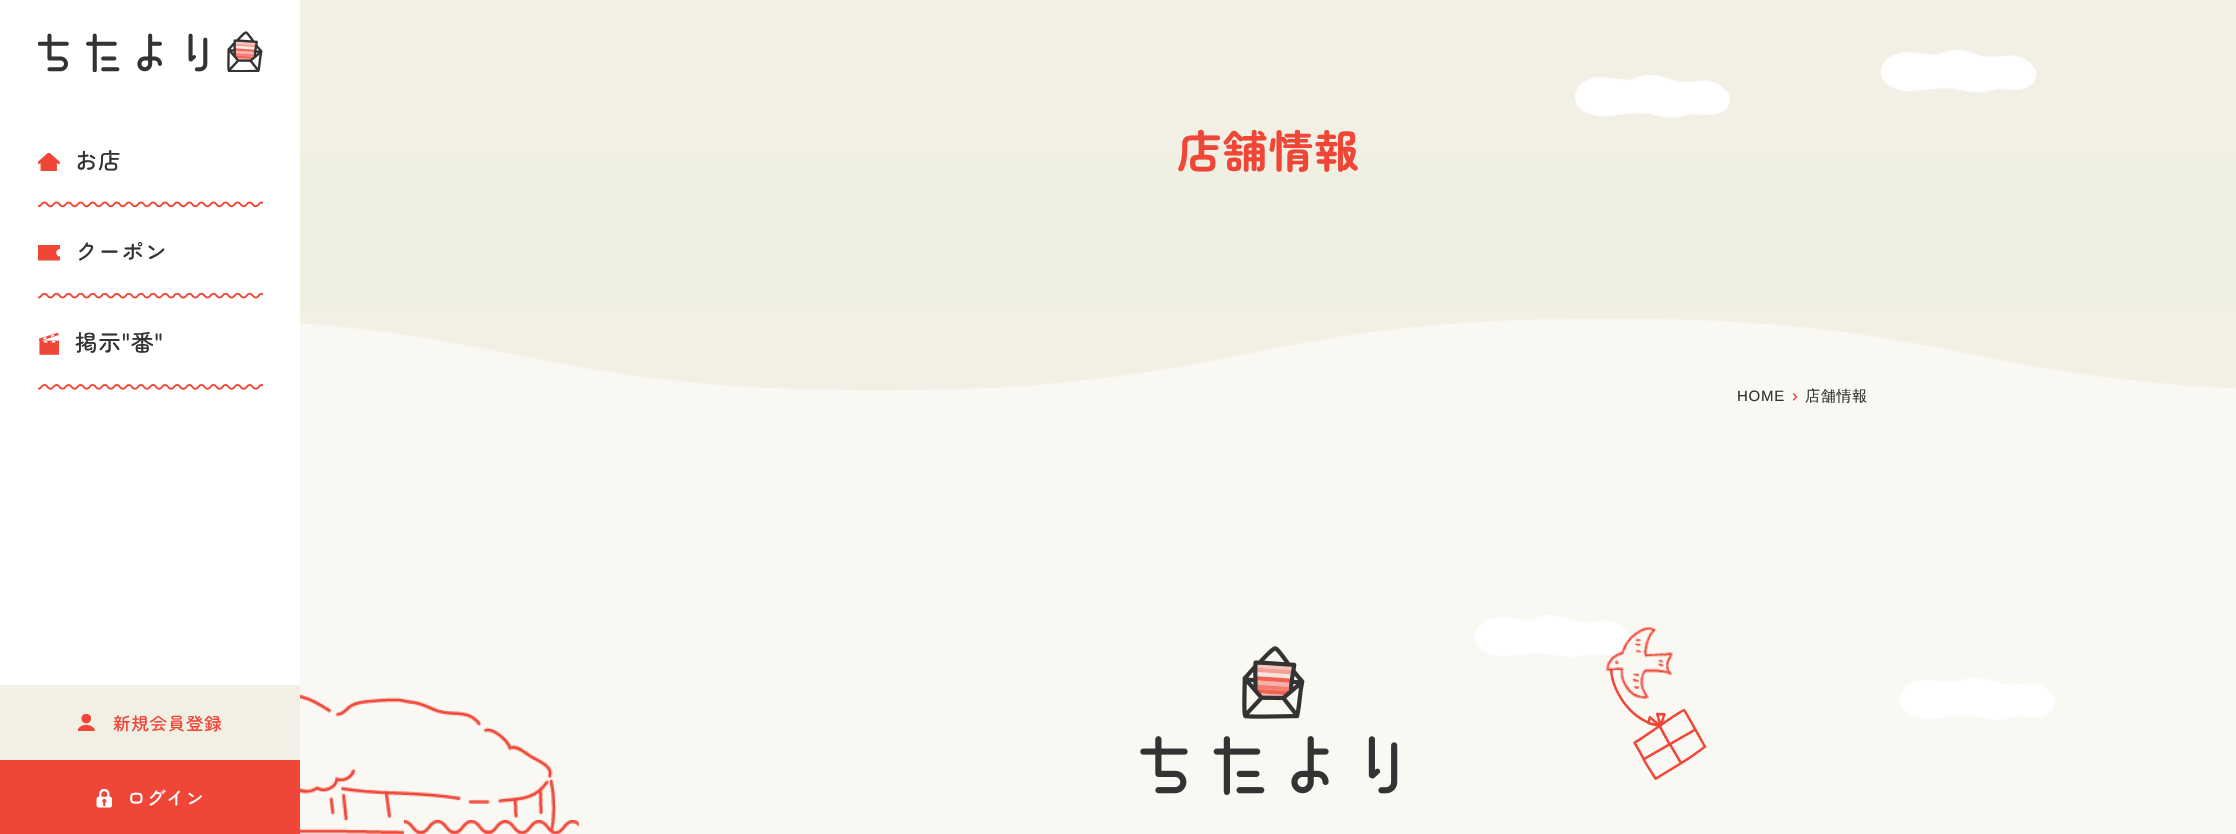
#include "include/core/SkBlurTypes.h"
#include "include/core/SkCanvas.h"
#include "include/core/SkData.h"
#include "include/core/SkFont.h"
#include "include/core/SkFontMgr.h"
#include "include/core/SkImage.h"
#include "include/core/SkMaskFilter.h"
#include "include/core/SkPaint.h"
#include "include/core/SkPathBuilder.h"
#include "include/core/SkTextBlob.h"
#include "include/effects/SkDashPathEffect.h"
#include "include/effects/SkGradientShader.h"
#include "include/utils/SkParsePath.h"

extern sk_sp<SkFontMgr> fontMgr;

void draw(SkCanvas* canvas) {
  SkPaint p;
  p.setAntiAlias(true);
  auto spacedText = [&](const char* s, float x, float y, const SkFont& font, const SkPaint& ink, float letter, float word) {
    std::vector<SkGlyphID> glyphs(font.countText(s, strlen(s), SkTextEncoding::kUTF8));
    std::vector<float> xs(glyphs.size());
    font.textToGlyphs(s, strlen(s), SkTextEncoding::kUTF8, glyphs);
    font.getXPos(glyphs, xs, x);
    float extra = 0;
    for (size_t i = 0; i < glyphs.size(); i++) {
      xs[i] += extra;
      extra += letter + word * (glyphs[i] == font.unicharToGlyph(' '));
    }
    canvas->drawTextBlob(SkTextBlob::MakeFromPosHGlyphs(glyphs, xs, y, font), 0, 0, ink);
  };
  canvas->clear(SkColorSetRGB(249, 248, 243));
  p.setColor(SK_ColorWHITE);
  canvas->drawRect(SkRect::MakeLTRB(0, 0, 300, 685), p);
  canvas->drawImageRect(SkImages::DeferredFromEncodedData(SkData::MakeFromFileName("images/1.png")), SkRect::MakeLTRB(38, 31, 263, 72), SkSamplingOptions());
  canvas->drawImageRect(SkImages::DeferredFromEncodedData(SkData::MakeFromFileName("images/2.png")), SkRect::MakeLTRB(38, 153, 60, 171), SkSamplingOptions());
  canvas->drawImageRect(SkImages::DeferredFromEncodedData(SkData::MakeFromFileName("images/3.png")), SkRect::MakeLTRB(38, 201, 263, 208), SkSamplingOptions());
  canvas->save();
  canvas->clipRect(SkRect::MakeLTRB(38, 245, 60, 261));
  p.setColor(SkColorSetRGB(239, 70, 55));
  canvas->drawPath(SkPathBuilder().moveTo(60, 260.5f).lineTo(37.5f, 260.5f).lineTo(37.5f, 245).lineTo(60, 245).lineTo(60, 249).cubicTo(55, 249, 55, 256.5f, 60, 256.5f).close().detach(), p);
  canvas->restore();
  canvas->drawImageRect(SkImages::DeferredFromEncodedData(SkData::MakeFromFileName("images/4.png")), SkRect::MakeLTRB(38, 293, 263, 299), SkSamplingOptions());
  canvas->drawImageRect(SkImages::DeferredFromEncodedData(SkData::MakeFromFileName("images/5.png")), SkRect::MakeLTRB(39, 333, 59, 355), SkSamplingOptions());
  canvas->drawImageRect(SkImages::DeferredFromEncodedData(SkData::MakeFromFileName("images/6.png")), SkRect::MakeLTRB(38, 384, 263, 390), SkSamplingOptions());
  p.setColor(SkColorSetRGB(242, 240, 228));
  canvas->drawRect(SkRect::MakeLTRB(0, 685, 300, 760), p);
  canvas->drawImageRect(SkImages::DeferredFromEncodedData(SkData::MakeFromFileName("images/7.png")), SkRect::MakeLTRB(78, 714, 95, 731), SkSamplingOptions());
  p.setColor(SkColorSetRGB(239, 70, 55));
  canvas->drawRect(SkRect::MakeLTRB(0, 760, 300, 834), p);
  canvas->drawImageRect(SkImages::DeferredFromEncodedData(SkData::MakeFromFileName("images/8.png")), SkRect::MakeLTRB(96, 789, 112, 808), SkSamplingOptions());
  {
    const SkColor colors[] = {SkColorSetRGB(242, 240, 228), SkColorSetRGB(242, 240, 228), SkColorSetRGB(240, 240, 226), SkColorSetRGB(240, 240, 226)};
    const float stops[] = {0, 0.5f, 0.5f, 1};
    const SkPoint ends[] = {{1268, 0}, {1268, 310}};
    p.setShader(SkGradientShader::MakeLinear(ends, colors, stops, 4, SkTileMode::kClamp));
    p.setAlpha(255);
  }
  canvas->drawRect(SkRect::MakeLTRB(300, 0, 2236, 310), p);
  canvas->drawImageRect(SkImages::DeferredFromEncodedData(SkData::MakeFromFileName("images/9.png")), SkRect::MakeLTRB(1575, 75, 1730, 118), SkSamplingOptions());
  canvas->drawImageRect(SkImages::DeferredFromEncodedData(SkData::MakeFromFileName("images/10.png")), SkRect::MakeLTRB(1881, 50, 2037, 93), SkSamplingOptions());
  canvas->drawImageRect(SkImages::DeferredFromEncodedData(SkData::MakeFromFileName("images/12.png")), SkRect::MakeLTRB(1793, 393, 1798, 401), SkSamplingOptions());
  canvas->drawImageRect(SkImages::DeferredFromEncodedData(SkData::MakeFromFileName("images/13.png")), SkRect::MakeLTRB(300, 694, 557, 834), SkSamplingOptions());
  canvas->drawImageRect(SkImages::DeferredFromEncodedData(SkData::MakeFromFileName("images/14.png")), SkRect::MakeLTRB(403, 820, 579, 834), SkSamplingOptions());
  canvas->drawImageRect(SkImages::DeferredFromEncodedData(SkData::MakeFromFileName("images/15.png")), SkRect::MakeLTRB(1475, 615, 1630, 658), SkSamplingOptions());
  canvas->drawImageRect(SkImages::DeferredFromEncodedData(SkData::MakeFromFileName("images/16.png")), SkRect::MakeLTRB(1606, 627, 1673, 699), SkSamplingOptions());
  canvas->drawImageRect(SkImages::DeferredFromEncodedData(SkData::MakeFromFileName("images/17.png")), SkRect::MakeLTRB(1610, 668, 1707, 780), SkSamplingOptions());
  canvas->drawImageRect(SkImages::DeferredFromEncodedData(SkData::MakeFromFileName("images/18.png")), SkRect::MakeLTRB(1900, 677, 2055, 720), SkSamplingOptions());
  canvas->drawImageRect(SkImages::DeferredFromEncodedData(SkData::MakeFromFileName("images/19.png")), SkRect::MakeLTRB(1140, 646, 1398, 795), SkSamplingOptions());
  SkFont font1(fontMgr->matchFamilyStyle("Zen Maru Gothic", SkFontStyle(500, SkFontStyle::kNormal_Width, SkFontStyle::kUpright_Slant)), 22.5f);
  font1.setSubpixel(true);
  p.setShader(nullptr);
  p.setColor(SkColorSetRGB(51, 51, 51));
  spacedText("お店", 75, 169, font1, p, 0.75f, 0);
  spacedText("クーポン", 75, 260, font1, p, 0.75f, 0);
  spacedText("掲示\"番\"", 75, 351, font1, p, 0.75f, 0);
  SkFont font2(fontMgr->matchFamilyStyle("Zen Maru Gothic", SkFontStyle(500, SkFontStyle::kNormal_Width, SkFontStyle::kUpright_Slant)), 17.5f);
  font2.setSubpixel(true);
  p.setColor(SkColorSetRGB(239, 70, 55));
  spacedText("新規会員登録", 113, 730, font2, p, 0.75f, 0);
  SkFont font3(fontMgr->matchFamilyStyle("Zen Maru Gothic", SkFontStyle(500, SkFontStyle::kNormal_Width, SkFontStyle::kUpright_Slant)), 18.75f);
  font3.setSubpixel(true);
  p.setColor(SK_ColorWHITE);
  spacedText("ログイン", 127, 805, font3, p, 0.75f, 0);
  SkFont font4(fontMgr->matchFamilyStyle("Zen Maru Gothic", SkFontStyle::Bold()), 45);
  font4.setSubpixel(true);
  p.setColor(SkColorSetRGB(239, 70, 55));
  spacedText("店舗情報", 1177, 168, font4, p, 0.75f, 0);
  SkFont font5(fontMgr->matchFamilyStyle("Liberation Sans", SkFontStyle::Normal()), 15);
  font5.setSubpixel(true);
  p.setColor(SkColorSetRGB(51, 51, 51));
  spacedText("HOME", 1737, 401, font5, p, 0.75f, 0);
  SkFont font6(fontMgr->matchFamilyStyle("WenQuanYi Zen Hei", SkFontStyle(500, SkFontStyle::kNormal_Width, SkFontStyle::kUpright_Slant)), 15);
  font6.setSubpixel(true);
  spacedText("店舗情報", 1805, 401, font6, p, 0.75f, 0);
  canvas->drawImageRect(SkImages::DeferredFromEncodedData(SkData::MakeFromFileName("images/11.png")), SkRect::MakeLTRB(300, 310, 2236, 391), SkSamplingOptions());
}
